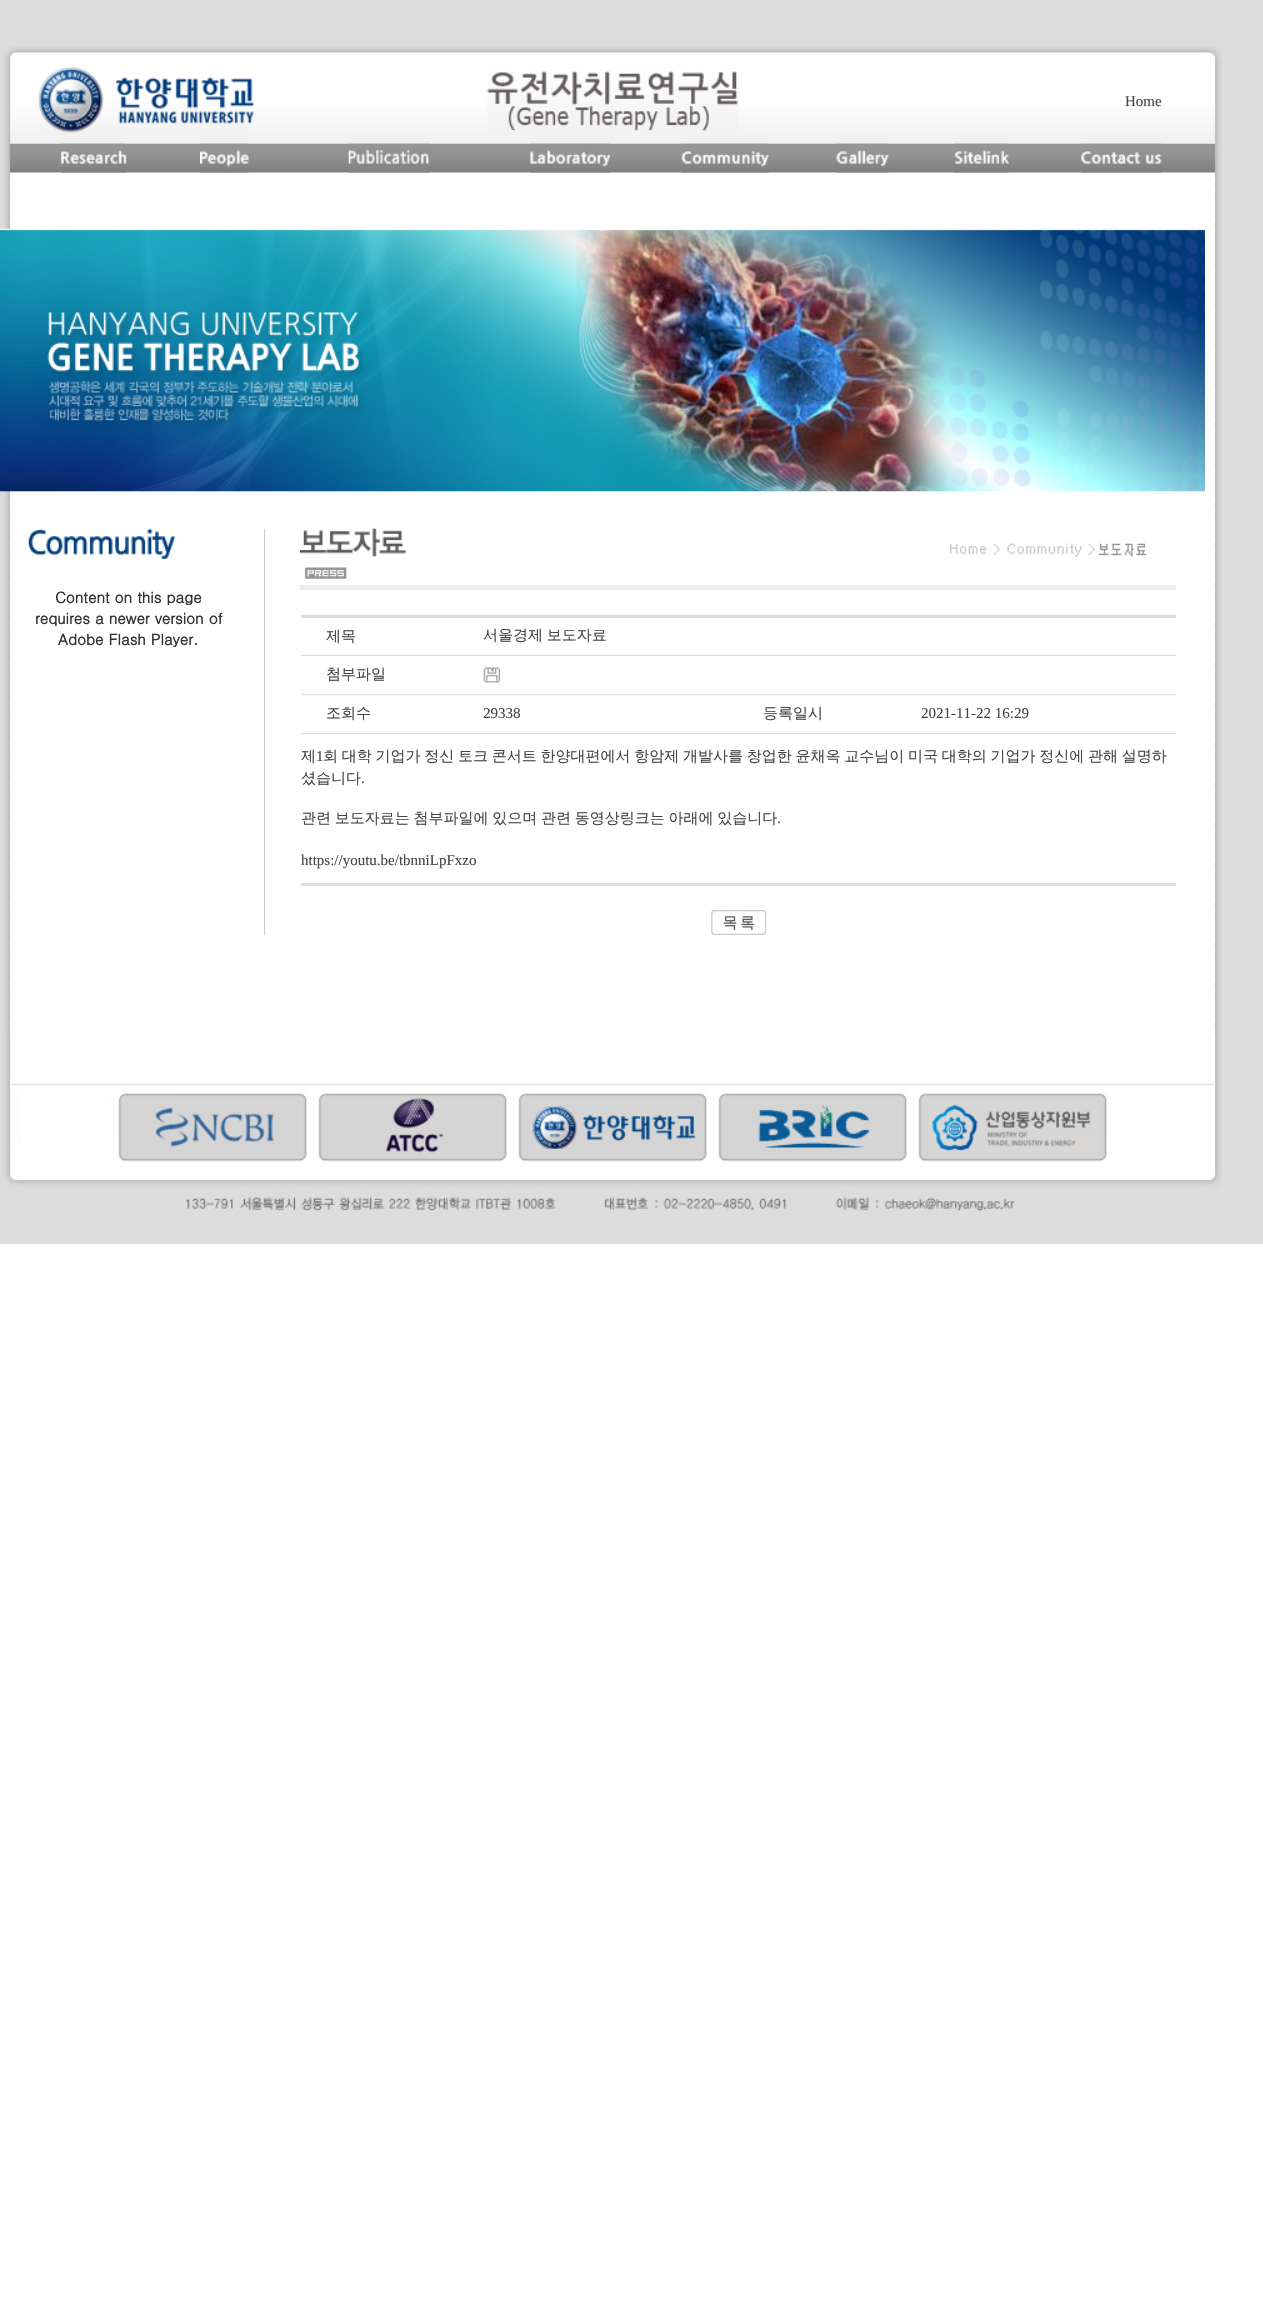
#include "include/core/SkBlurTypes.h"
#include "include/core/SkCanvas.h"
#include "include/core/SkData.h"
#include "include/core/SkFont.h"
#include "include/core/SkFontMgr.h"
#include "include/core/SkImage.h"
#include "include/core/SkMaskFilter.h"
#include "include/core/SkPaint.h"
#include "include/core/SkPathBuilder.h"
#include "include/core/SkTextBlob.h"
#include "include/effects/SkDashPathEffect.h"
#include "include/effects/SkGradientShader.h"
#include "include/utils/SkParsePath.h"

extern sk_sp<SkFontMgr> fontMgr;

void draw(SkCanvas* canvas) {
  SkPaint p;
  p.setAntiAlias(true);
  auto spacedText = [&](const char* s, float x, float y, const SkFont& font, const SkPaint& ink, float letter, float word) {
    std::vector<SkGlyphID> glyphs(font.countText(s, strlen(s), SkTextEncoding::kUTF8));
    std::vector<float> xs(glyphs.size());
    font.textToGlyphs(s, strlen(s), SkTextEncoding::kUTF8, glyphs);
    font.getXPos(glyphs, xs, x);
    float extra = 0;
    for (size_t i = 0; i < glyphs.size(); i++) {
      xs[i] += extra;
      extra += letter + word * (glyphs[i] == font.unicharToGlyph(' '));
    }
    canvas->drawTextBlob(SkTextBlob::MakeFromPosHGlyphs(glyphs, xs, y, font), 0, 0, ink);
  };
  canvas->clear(SK_ColorWHITE);
  p.setColor(SkColorSetRGB(221, 221, 221));
  canvas->drawRect(SkRect::MakeLTRB(0, 0, 1263, 1244), p);
  canvas->drawImageRect(SkImages::DeferredFromEncodedData(SkData::MakeFromFileName("images/1.png")), SkRect::MakeLTRB(3, 46, 1222, 154), SkSamplingOptions());
  canvas->drawImageRect(SkImages::DeferredFromEncodedData(SkData::MakeFromFileName("images/2.png")), SkRect::MakeLTRB(38, 67, 254, 133), SkSamplingOptions());
  canvas->drawImageRect(SkImages::DeferredFromEncodedData(SkData::MakeFromFileName("images/3.png")), SkRect::MakeLTRB(487, 69, 739, 131), SkSamplingOptions());
  canvas->drawImageRect(SkImages::DeferredFromEncodedData(SkData::MakeFromFileName("images/13.png")), SkRect::MakeLTRB(3, 153, 1222, 1035), SkSamplingOptions());
  canvas->drawImageRect(SkImages::DeferredFromEncodedData(SkData::MakeFromFileName("images/4.png")), SkRect::MakeLTRB(8, 143, 1218, 173), SkSamplingOptions());
  canvas->drawImageRect(SkImages::DeferredFromEncodedData(SkData::MakeFromFileName("images/5.png")), SkRect::MakeLTRB(61, 143, 127, 173), SkSamplingOptions());
  canvas->drawImageRect(SkImages::DeferredFromEncodedData(SkData::MakeFromFileName("images/6.png")), SkRect::MakeLTRB(200, 143, 249, 173), SkSamplingOptions());
  canvas->drawImageRect(SkImages::DeferredFromEncodedData(SkData::MakeFromFileName("images/7.png")), SkRect::MakeLTRB(348, 143, 430, 173), SkSamplingOptions());
  canvas->drawImageRect(SkImages::DeferredFromEncodedData(SkData::MakeFromFileName("images/8.png")), SkRect::MakeLTRB(530, 143, 610, 173), SkSamplingOptions());
  canvas->drawImageRect(SkImages::DeferredFromEncodedData(SkData::MakeFromFileName("images/9.png")), SkRect::MakeLTRB(681, 143, 769, 173), SkSamplingOptions());
  canvas->drawImageRect(SkImages::DeferredFromEncodedData(SkData::MakeFromFileName("images/10.png")), SkRect::MakeLTRB(836, 143, 889, 173), SkSamplingOptions());
  canvas->drawImageRect(SkImages::DeferredFromEncodedData(SkData::MakeFromFileName("images/11.png")), SkRect::MakeLTRB(953, 143, 1009, 173), SkSamplingOptions());
  canvas->drawImageRect(SkImages::DeferredFromEncodedData(SkData::MakeFromFileName("images/12.png")), SkRect::MakeLTRB(1081, 143, 1162, 173), SkSamplingOptions());
  canvas->drawImageRect(SkImages::DeferredFromEncodedData(SkData::MakeFromFileName("images/14.png")), SkRect::MakeLTRB(0, 228, 1205, 492), SkSamplingOptions());
  canvas->drawImageRect(SkImages::DeferredFromEncodedData(SkData::MakeFromFileName("images/15.png")), SkRect::MakeLTRB(28, 528, 176, 559), SkSamplingOptions());
  p.setColor(SkColorSetRGB(204, 204, 204));
  canvas->drawRect(SkRect::MakeLTRB(264, 529, 265, 935), p);
  canvas->drawImageRect(SkImages::DeferredFromEncodedData(SkData::MakeFromFileName("images/16.png")), SkRect::MakeLTRB(300, 528, 1177, 590), SkSamplingOptions());
  p.setColor(SkColorSetRGB(220, 220, 220));
  canvas->drawRect(SkRect::MakeLTRB(301, 615, 1176, 618), p);
  canvas->drawRect(SkRect::MakeLTRB(301, 655, 1176, 656), p);
  canvas->drawImageRect(SkImages::DeferredFromEncodedData(SkData::MakeFromFileName("images/17.png")), SkRect::MakeLTRB(483, 667, 500, 683), SkSamplingOptions());
  canvas->drawRect(SkRect::MakeLTRB(301, 694, 1176, 695), p);
  canvas->drawRect(SkRect::MakeLTRB(301, 733, 1176, 734), p);
  canvas->drawRect(SkRect::MakeLTRB(301, 883, 1176, 886), p);
  canvas->drawImageRect(SkImages::DeferredFromEncodedData(SkData::MakeFromFileName("images/18.png")), SkRect::MakeLTRB(711, 910, 767, 935), SkSamplingOptions());
  canvas->drawImageRect(SkImages::DeferredFromEncodedData(SkData::MakeFromFileName("images/19.png")), SkRect::MakeLTRB(2, 1035, 1222, 1215), SkSamplingOptions());
  SkFont font1(fontMgr->matchFamilyStyle("Liberation Serif", SkFontStyle::Normal()), 15);
  font1.setSubpixel(true);
  p.setColor(SkColorSetRGB(68, 68, 68));
  canvas->drawString("Home", 1125, 106, font1, p);
  SkFont font2(fontMgr->matchFamilyStyle("Dotum", SkFontStyle::Bold()), 15);
  font2.setSubpixel(true);
  p.setColor(SkColorSetRGB(51, 51, 51));
  canvas->drawString("Content on this page", 55, 603, font2, p);
  canvas->drawString("requires a newer version of", 35, 624, font2, p);
  canvas->drawString("Adobe Flash Player.", 58, 645, font2, p);
  SkFont font3(fontMgr->matchFamilyStyle("WenQuanYi Zen Hei", SkFontStyle(500, SkFontStyle::kNormal_Width, SkFontStyle::kUpright_Slant)), 15);
  font3.setSubpixel(true);
  p.setColor(SkColorSetRGB(68, 68, 68));
  canvas->drawString("제목", 326, 641, font3, p);
  spacedText("서울경제 보도자료", 483, 640, font3, p, 0, -0.75f);
  canvas->drawString("첨부파일", 326, 679, font3, p);
  canvas->drawString("조회수", 326, 718, font3, p);
  canvas->drawString("29338", 483, 718, font1, p);
  canvas->drawString("등록일시", 763, 718, font3, p);
  canvas->drawString("2021-11-22 16:29", 921, 718, font1, p);
  canvas->drawString("제", 301, 761, font3, p);
  canvas->drawString("1", 316, 761, font1, p);
  spacedText("회 대학 기업가 정신 토크 콘서트 한양대편에서 항암제 개발사를 창업한 윤채옥 교수님이 미국 대학의 기업가 정신에 관해 설명하", 323, 761, font3, p, 0, -0.75f);
  canvas->drawString("셨습니다", 301, 783, font3, p);
  canvas->drawString(".", 361, 783, font1, p);
  spacedText("관련 보도자료는 첨부파일에 있으며 관련 동영상링크는 아래에 있습니다", 301, 823, font3, p, 0, -0.75f);
  canvas->drawString(".", 777, 823, font1, p);
  canvas->drawString("https://youtu.be/tbnniLpFxzo", 301, 865, font1, p);
}
